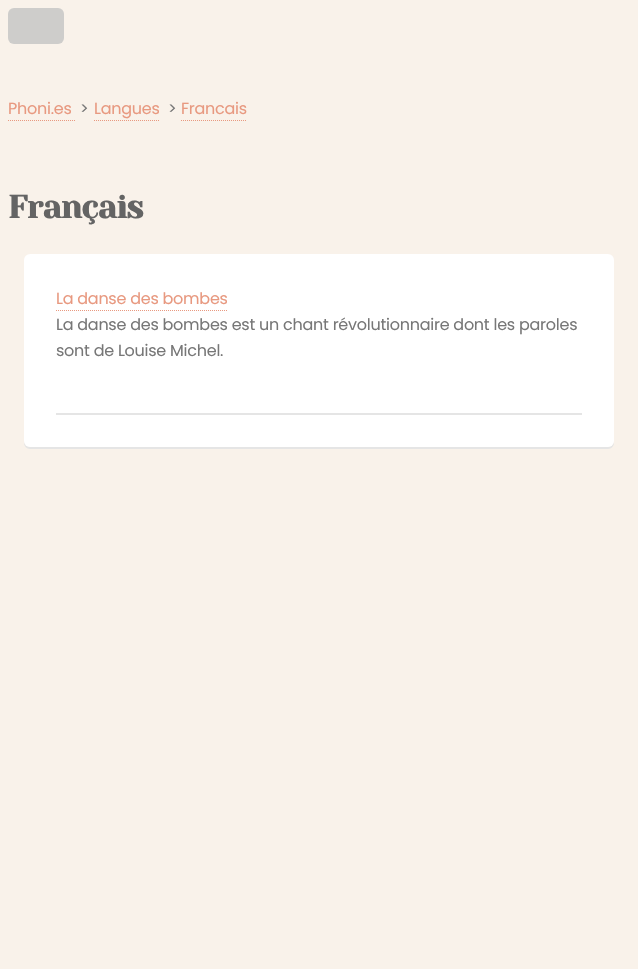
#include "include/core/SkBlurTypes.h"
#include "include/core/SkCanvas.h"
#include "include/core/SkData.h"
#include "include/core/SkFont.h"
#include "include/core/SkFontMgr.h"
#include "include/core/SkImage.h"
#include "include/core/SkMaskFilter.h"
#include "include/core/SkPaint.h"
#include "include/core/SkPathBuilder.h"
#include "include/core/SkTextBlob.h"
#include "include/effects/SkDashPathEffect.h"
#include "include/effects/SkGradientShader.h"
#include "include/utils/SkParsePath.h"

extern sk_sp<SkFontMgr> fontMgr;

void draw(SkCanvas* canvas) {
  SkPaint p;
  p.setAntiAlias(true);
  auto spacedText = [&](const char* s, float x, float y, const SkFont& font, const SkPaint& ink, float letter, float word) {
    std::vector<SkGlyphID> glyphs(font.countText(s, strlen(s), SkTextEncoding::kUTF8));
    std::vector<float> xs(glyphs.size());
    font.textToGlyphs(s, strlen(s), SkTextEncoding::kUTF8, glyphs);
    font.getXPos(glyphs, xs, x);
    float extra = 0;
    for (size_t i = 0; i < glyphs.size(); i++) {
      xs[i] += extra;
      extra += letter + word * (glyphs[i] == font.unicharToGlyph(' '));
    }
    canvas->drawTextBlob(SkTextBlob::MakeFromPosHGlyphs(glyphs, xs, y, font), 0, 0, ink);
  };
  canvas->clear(SkColorSetRGB(249, 242, 234));
  p.setColor(SkColorSetRGB(206, 205, 203));
  canvas->drawRoundRect(SkRect::MakeLTRB(8, 8, 64, 44), 6, 6, p);
  p.setStyle(SkPaint::kStroke_Style);
  p.setStrokeWidth(1);
  p.setColor(SkColorSetRGB(232, 153, 128));
  p.setPathEffect(SkDashPathEffect::Make({{1, 1}}, 0));
  canvas->drawPath(SkPathBuilder().moveTo(8, 120.5f).lineTo(76, 120.5f).detach(), p);
  p.setPathEffect(nullptr);
  p.setPathEffect(SkDashPathEffect::Make({{1, 1}}, 0));
  canvas->drawPath(SkPathBuilder().moveTo(94, 120.5f).lineTo(159, 120.5f).detach(), p);
  p.setPathEffect(nullptr);
  p.setPathEffect(SkDashPathEffect::Make({{1, 1}}, 0));
  canvas->drawPath(SkPathBuilder().moveTo(181, 120.5f).lineTo(247, 120.5f).detach(), p);
  p.setPathEffect(nullptr);
  p.setStyle(SkPaint::kFill_Style);
  p.setColor(SkColorSetRGB(229, 229, 229));
  canvas->drawPath(SkPathBuilder().moveTo(24, 441).lineTo(24, 443).cubicTo(24, 446, 27, 449, 30, 449).lineTo(608, 449).cubicTo(611, 449, 614, 446, 614, 443).lineTo(614, 441).cubicTo(614, 444, 611, 447, 608, 447).lineTo(30, 447).cubicTo(27, 447, 24, 444, 24, 441).close().detach(), p);
  p.setColor(SK_ColorWHITE);
  canvas->drawRoundRect(SkRect::MakeLTRB(24, 254, 614, 447), 6, 6, p);
  p.setStyle(SkPaint::kStroke_Style);
  p.setColor(SkColorSetRGB(232, 153, 128));
  p.setPathEffect(SkDashPathEffect::Make({{1, 1}}, 0));
  canvas->drawPath(SkPathBuilder().moveTo(56, 310.5f).lineTo(228, 310.5f).detach(), p);
  p.setPathEffect(nullptr);
  p.setStyle(SkPaint::kFill_Style);
  p.setColor(SkColorSetRGB(229, 229, 229));
  canvas->drawRect(SkRect::MakeLTRB(56, 413, 582, 415), p);
  SkFont font1(fontMgr->matchFamilyStyle("Poppins", SkFontStyle::Normal()), 16);
  font1.setSubpixel(true);
  p.setColor(SkColorSetRGB(232, 153, 128));
  spacedText("Phoni.es", 8, 114, font1, p, -0.25f, 0);
  p.setColor(SkColorSetRGB(119, 119, 119));
  spacedText(">", 80, 114, font1, p, -0.25f, 0);
  p.setColor(SkColorSetRGB(232, 153, 128));
  spacedText("Langues", 94, 114, font1, p, -0.25f, 0);
  p.setColor(SkColorSetRGB(119, 119, 119));
  spacedText(">", 168, 114, font1, p, -0.25f, 0);
  p.setColor(SkColorSetRGB(232, 153, 128));
  spacedText("Francais", 181, 114, font1, p, -0.25f, 0);
  SkFont font2(fontMgr->matchFamilyStyle("Yeseva One", SkFontStyle::Bold()), 32);
  font2.setSubpixel(true);
  p.setColor(SkColorSetRGB(100, 100, 100));
  spacedText("Français", 8, 218, font2, p, -0.75f, 0);
  p.setColor(SkColorSetRGB(232, 153, 128));
  spacedText("La danse des bombes", 56, 304, font1, p, -0.25f, 0);
  p.setColor(SkColorSetRGB(119, 119, 119));
  spacedText("La danse des bombes est un chant révolutionnaire dont les paroles", 56, 330, font1, p, -0.25f, 0);
  spacedText("sont de Louise Michel.", 56, 356, font1, p, -0.25f, 0);
}
